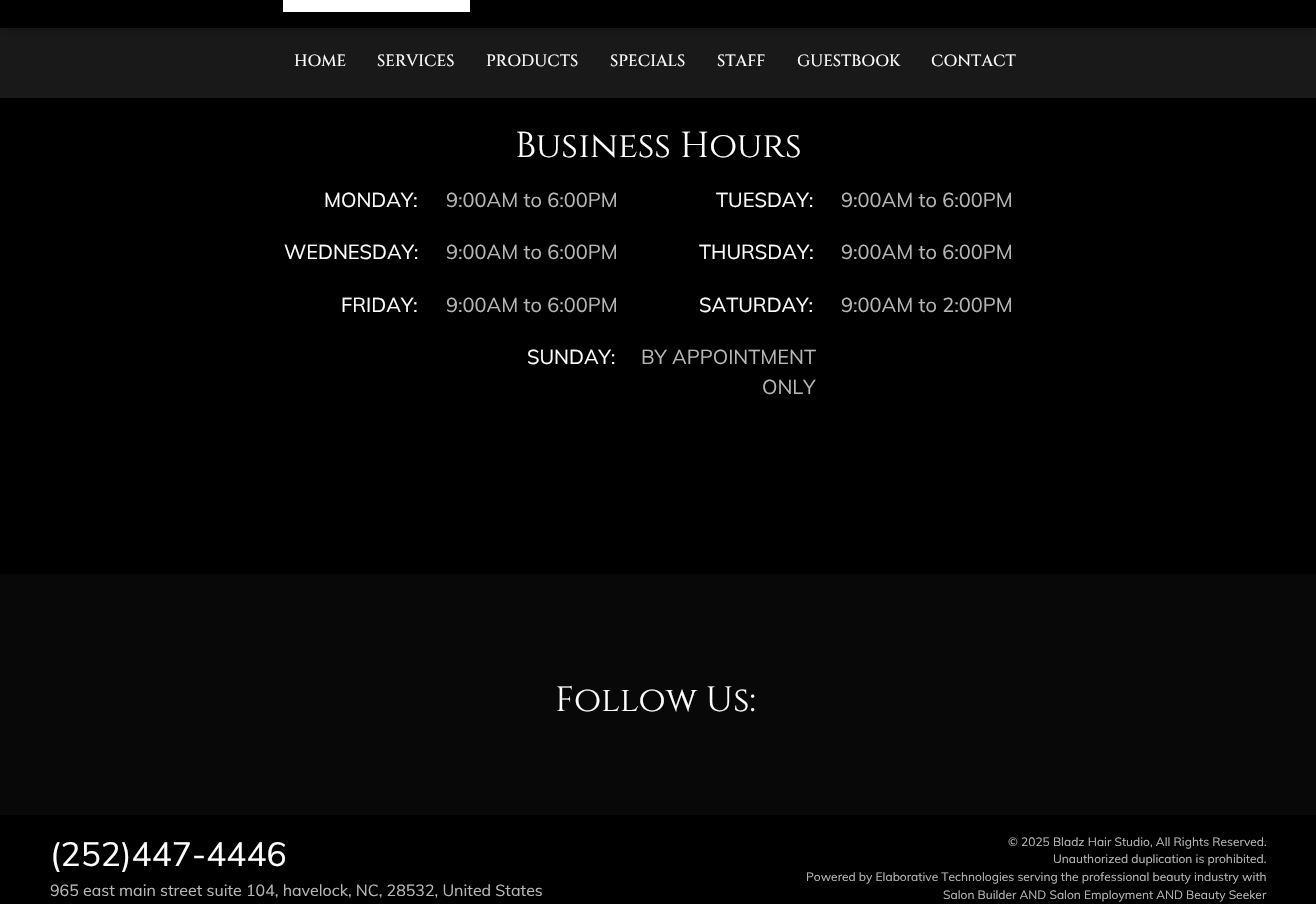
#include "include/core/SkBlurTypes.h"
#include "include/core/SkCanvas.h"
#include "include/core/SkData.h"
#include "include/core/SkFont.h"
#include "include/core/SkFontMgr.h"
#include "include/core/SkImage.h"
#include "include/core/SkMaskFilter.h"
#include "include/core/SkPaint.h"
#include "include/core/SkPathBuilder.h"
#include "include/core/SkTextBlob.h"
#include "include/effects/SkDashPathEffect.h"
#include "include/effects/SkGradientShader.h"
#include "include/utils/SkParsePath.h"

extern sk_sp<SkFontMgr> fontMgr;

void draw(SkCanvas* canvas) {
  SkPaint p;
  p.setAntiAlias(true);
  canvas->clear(SK_ColorBLACK);
  p.setColor(SK_ColorWHITE);
  canvas->drawRect(SkRect::MakeLTRB(0, 28, 1316, 98), p);
  p.setColor(SkColorSetARGB(51, 76, 73, 61));
  p.setMaskFilter(SkMaskFilter::MakeBlur(kNormal_SkBlurStyle, 3));
  canvas->drawRect(SkRect::MakeLTRB(0, -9, 1316, 34), p);
  p.setMaskFilter(nullptr);
  p.setColor(SK_ColorBLACK);
  canvas->drawRect(SkRect::MakeLTRB(0, 0, 1316, 28), p);
  p.setColor(SkColorSetRGB(254, 255, 254));
  canvas->drawRect(SkRect::MakeLTRB(283, 0, 470, 12), p);
  p.setColor(SkColorSetARGB(230, 0, 0, 0));
  canvas->drawRect(SkRect::MakeLTRB(0, 28, 1316, 98), p);
  p.setColor(SkColorSetRGB(8, 8, 8));
  canvas->drawRect(SkRect::MakeLTRB(0, 574, 1316, 815), p);
  SkFont font1(fontMgr->matchFamilyStyle("Cinzel", SkFontStyle(500, SkFontStyle::kNormal_Width, SkFontStyle::kUpright_Slant)), 16.25f);
  font1.setSubpixel(true);
  p.setColor(SK_ColorWHITE);
  canvas->drawString("HOME", 294, 66, font1, p);
  canvas->drawString("SERVICES", 377, 66, font1, p);
  canvas->drawString("PRODUCTS", 486, 66, font1, p);
  canvas->drawString("SPECIALS", 610, 66, font1, p);
  canvas->drawString("STAFF", 717, 66, font1, p);
  canvas->drawString("GUESTBOOK", 797, 66, font1, p);
  canvas->drawString("CONTACT", 931, 66, font1, p);
  SkFont font2(fontMgr->matchFamilyStyle("Cinzel", SkFontStyle::Normal()), 36);
  font2.setSubpixel(true);
  canvas->drawString("Business Hours", 515, 157, font2, p);
  SkFont font3(fontMgr->matchFamilyStyle("Muli", SkFontStyle::Normal()), 20);
  font3.setSubpixel(true);
  canvas->drawString("MONDAY:", 324, 207, font3, p);
  p.setColor(SkColorSetRGB(183, 183, 183));
  canvas->drawString("9:00AM to 6:00PM", 446, 207, font3, p);
  p.setColor(SK_ColorWHITE);
  canvas->drawString("TUESDAY:", 716, 207, font3, p);
  p.setColor(SkColorSetRGB(183, 183, 183));
  canvas->drawString("9:00AM to 6:00PM", 841, 207, font3, p);
  p.setColor(SK_ColorWHITE);
  canvas->drawString("WEDNESDAY:", 284, 259, font3, p);
  p.setColor(SkColorSetRGB(183, 183, 183));
  canvas->drawString("9:00AM to 6:00PM", 446, 259, font3, p);
  p.setColor(SK_ColorWHITE);
  canvas->drawString("THURSDAY:", 699, 259, font3, p);
  p.setColor(SkColorSetRGB(183, 183, 183));
  canvas->drawString("9:00AM to 6:00PM", 841, 259, font3, p);
  p.setColor(SK_ColorWHITE);
  canvas->drawString("FRIDAY:", 341, 312, font3, p);
  p.setColor(SkColorSetRGB(183, 183, 183));
  canvas->drawString("9:00AM to 6:00PM", 446, 312, font3, p);
  p.setColor(SK_ColorWHITE);
  canvas->drawString("SATURDAY:", 699, 312, font3, p);
  p.setColor(SkColorSetRGB(183, 183, 183));
  canvas->drawString("9:00AM to 2:00PM", 841, 312, font3, p);
  p.setColor(SK_ColorWHITE);
  canvas->drawString("SUNDAY:", 527, 364, font3, p);
  p.setColor(SkColorSetRGB(183, 183, 183));
  canvas->drawString("BY APPOINTMENT", 641, 364, font3, p);
  canvas->drawString("ONLY", 762, 394, font3, p);
  SkFont font4(fontMgr->matchFamilyStyle("Cinzel", SkFontStyle::Normal()), 35);
  font4.setSubpixel(true);
  p.setColor(SK_ColorWHITE);
  canvas->drawString("Follow Us:", 555, 711, font4, p);
  SkFont font5(fontMgr->matchFamilyStyle("Muli", SkFontStyle::Normal()), 33.5f);
  font5.setSubpixel(true);
  canvas->drawString("(252)447-4446", 50, 866, font5, p);
  SkFont font6(fontMgr->matchFamilyStyle("Muli", SkFontStyle::Normal()), 16);
  font6.setSubpixel(true);
  p.setColor(SkColorSetRGB(183, 183, 183));
  canvas->drawString("965 east main street suite 104, havelock, NC, 28532, United States", 50, 896, font6, p);
  SkFont font7(fontMgr->matchFamilyStyle("Muli", SkFontStyle::Normal()), 12);
  font7.setSubpixel(true);
  canvas->drawString("© 2025 Bladz Hair Studio, All Rights Reserved.", 1008, 846, font7, p);
  canvas->drawString("Unauthorized duplication is prohibited.", 1053, 863, font7, p);
  canvas->drawString("Powered by Elaborative Technologies serving the professional beauty industry with", 806, 881, font7, p);
  canvas->drawString("Salon Builder AND Salon Employment AND Beauty Seeker", 943, 899, font7, p);
}
